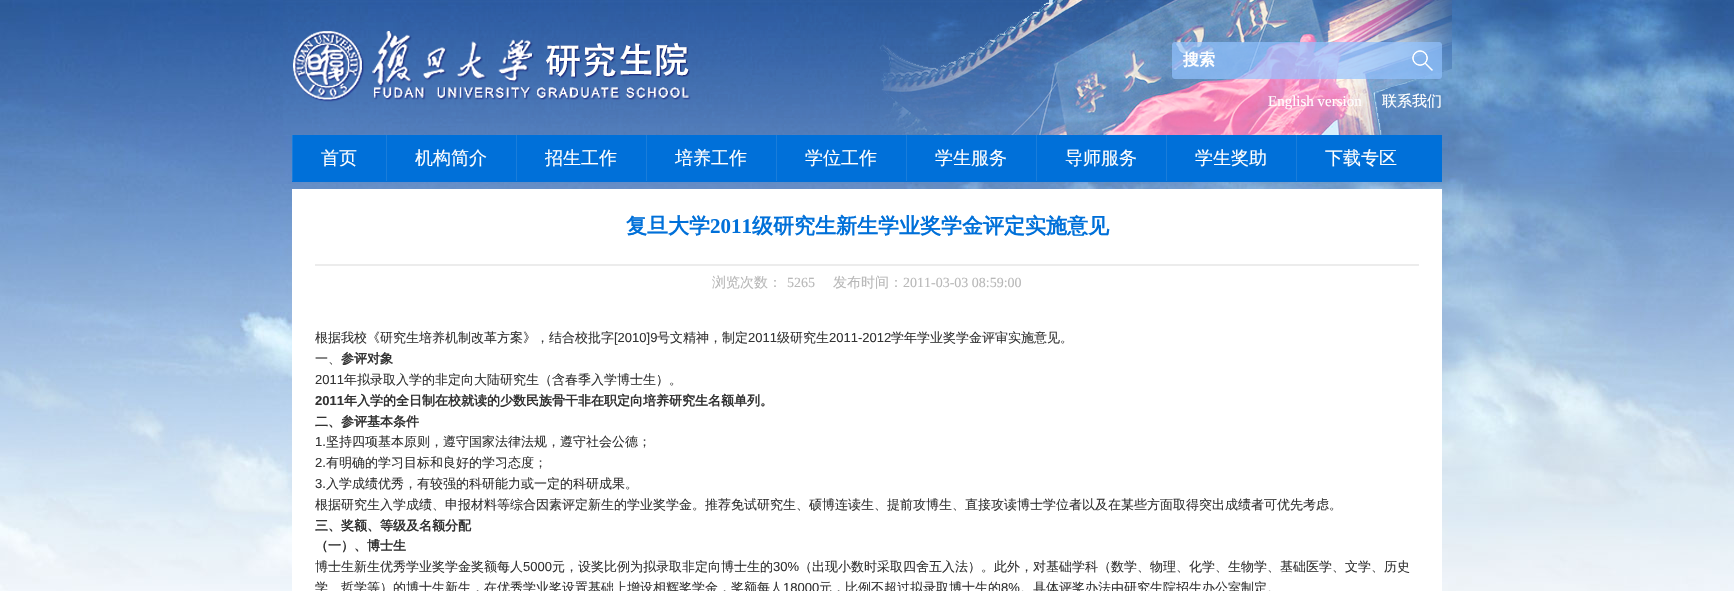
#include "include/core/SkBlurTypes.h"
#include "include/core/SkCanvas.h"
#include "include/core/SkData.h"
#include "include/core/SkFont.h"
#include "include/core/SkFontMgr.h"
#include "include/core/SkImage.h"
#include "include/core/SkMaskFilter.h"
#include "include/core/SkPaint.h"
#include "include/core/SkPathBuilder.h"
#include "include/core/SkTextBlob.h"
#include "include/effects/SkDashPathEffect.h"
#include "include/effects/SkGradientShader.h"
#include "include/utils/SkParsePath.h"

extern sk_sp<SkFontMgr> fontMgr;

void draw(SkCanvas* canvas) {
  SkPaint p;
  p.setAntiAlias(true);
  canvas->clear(SK_ColorWHITE);
  canvas->drawImageRect(SkImages::DeferredFromEncodedData(SkData::MakeFromFileName("images/1.png")), SkRect::MakeLTRB(0, 0, 1734, 591), SkSamplingOptions());
  canvas->drawImageRect(SkImages::DeferredFromEncodedData(SkData::MakeFromFileName("images/2.png")), SkRect::MakeLTRB(283, 0, 1452, 135), SkSamplingOptions());
  canvas->drawImageRect(SkImages::DeferredFromEncodedData(SkData::MakeFromFileName("images/3.png")), SkRect::MakeLTRB(1172, 42, 1442, 79), SkSamplingOptions());
  p.setColor(SkColorSetRGB(0, 112, 217));
  canvas->drawRect(SkRect::MakeLTRB(292, 135, 1442, 182), p);
  p.setColor(SkColorSetRGB(26, 125, 218));
  canvas->drawRect(SkRect::MakeLTRB(292, 135, 293, 181), p);
  canvas->drawRect(SkRect::MakeLTRB(386, 135, 387, 181), p);
  canvas->drawRect(SkRect::MakeLTRB(516, 135, 517, 181), p);
  canvas->drawRect(SkRect::MakeLTRB(646, 135, 647, 181), p);
  canvas->drawRect(SkRect::MakeLTRB(776, 135, 777, 181), p);
  canvas->drawRect(SkRect::MakeLTRB(906, 135, 907, 181), p);
  canvas->drawRect(SkRect::MakeLTRB(1036, 135, 1037, 181), p);
  canvas->drawRect(SkRect::MakeLTRB(1166, 135, 1167, 181), p);
  canvas->drawRect(SkRect::MakeLTRB(1296, 135, 1297, 181), p);
  p.setColor(SK_ColorWHITE);
  canvas->drawRect(SkRect::MakeLTRB(292, 189, 1442, 591), p);
  p.setColor(SkColorSetRGB(236, 236, 236));
  canvas->drawRect(SkRect::MakeLTRB(315, 264, 1419, 266), p);
  SkFont font1(fontMgr->matchFamilyStyle("WenQuanYi Zen Hei", SkFontStyle::Bold()), 16);
  font1.setSubpixel(true);
  p.setColor(SK_ColorWHITE);
  canvas->drawString("搜索", 1183, 65, font1, p);
  SkFont font2(fontMgr->matchFamilyStyle("Liberation Serif", SkFontStyle::Normal()), 15);
  font2.setSubpixel(true);
  canvas->drawString("English version", 1268, 106, font2, p);
  SkFont font3(fontMgr->matchFamilyStyle("WenQuanYi Zen Hei", SkFontStyle(500, SkFontStyle::kNormal_Width, SkFontStyle::kUpright_Slant)), 15);
  font3.setSubpixel(true);
  canvas->drawString("联系我们", 1382, 106, font3, p);
  SkFont font4(fontMgr->matchFamilyStyle("WenQuanYi Zen Hei", SkFontStyle(500, SkFontStyle::kNormal_Width, SkFontStyle::kUpright_Slant)), 18);
  font4.setSubpixel(true);
  canvas->drawString("首页", 321, 164, font4, p);
  canvas->drawString("机构简介", 415, 164, font4, p);
  canvas->drawString("招生工作", 545, 164, font4, p);
  canvas->drawString("培养工作", 675, 164, font4, p);
  canvas->drawString("学位工作", 805, 164, font4, p);
  canvas->drawString("学生服务", 935, 164, font4, p);
  canvas->drawString("导师服务", 1065, 164, font4, p);
  canvas->drawString("学生奖助", 1195, 164, font4, p);
  canvas->drawString("下载专区", 1325, 164, font4, p);
  SkFont font5(fontMgr->matchFamilyStyle("WenQuanYi Zen Hei", SkFontStyle::Bold()), 21);
  font5.setSubpixel(true);
  p.setColor(SkColorSetRGB(0, 112, 217));
  canvas->drawString("复旦大学", 626, 233, font5, p);
  SkFont font6(fontMgr->matchFamilyStyle("Liberation Serif", SkFontStyle::Bold()), 21);
  font6.setSubpixel(true);
  canvas->drawString("2011", 710, 233, font6, p);
  canvas->drawString("级研究生新生学业奖学金评定实施意见", 752, 233, font5, p);
  SkFont font7(fontMgr->matchFamilyStyle("WenQuanYi Zen Hei", SkFontStyle(500, SkFontStyle::kNormal_Width, SkFontStyle::kUpright_Slant)), 14);
  font7.setSubpixel(true);
  p.setColor(SkColorSetRGB(184, 184, 184));
  canvas->drawString("浏览次数：", 712, 287, font7, p);
  SkFont font8(fontMgr->matchFamilyStyle("Liberation Serif", SkFontStyle::Normal()), 14);
  font8.setSubpixel(true);
  canvas->drawString("5265", 787, 287, font8, p);
  canvas->drawString("发布时间：", 833, 287, font7, p);
  canvas->drawString("2011-03-03 08:59:00", 903, 287, font8, p);
  SkFont font9(fontMgr->matchFamilyStyle("WenQuanYi Zen Hei", SkFontStyle(500, SkFontStyle::kNormal_Width, SkFontStyle::kUpright_Slant)), 13);
  font9.setSubpixel(true);
  p.setColor(SkColorSetRGB(51, 51, 51));
  canvas->drawString("根据我校《研究生培养机制改革方案》，结合校批字", 315, 342, font9, p);
  SkFont font10(fontMgr->matchFamilyStyle("Liberation Sans", SkFontStyle::Normal()), 13);
  font10.setSubpixel(true);
  canvas->drawString("[2010]9", 614, 342, font10, p);
  canvas->drawString("号文精神，制定", 657, 342, font9, p);
  canvas->drawString("2011", 748, 342, font10, p);
  canvas->drawString("级研究生", 777, 342, font9, p);
  canvas->drawString("2011-2012", 829, 342, font10, p);
  canvas->drawString("学年学业奖学金评审实施意见。", 891, 342, font9, p);
  canvas->drawString("一、", 315, 363, font9, p);
  SkFont font11(fontMgr->matchFamilyStyle("WenQuanYi Zen Hei", SkFontStyle::Bold()), 13);
  font11.setSubpixel(true);
  canvas->drawString("参评对象", 341, 363, font11, p);
  canvas->drawString("2011", 315, 384, font10, p);
  canvas->drawString("年拟录取入学的非定向大陆研究生（含春季入学博士生）。", 344, 384, font9, p);
  SkFont font12(fontMgr->matchFamilyStyle("Liberation Sans", SkFontStyle::Bold()), 13);
  font12.setSubpixel(true);
  canvas->drawString("2011", 315, 405, font12, p);
  canvas->drawString("年入学的全日制在校就读的少数民族骨干非在职定向培养研究生名额单列。", 344, 405, font11, p);
  canvas->drawString("二、参评基本条件", 315, 426, font11, p);
  canvas->drawString("1.", 315, 446, font10, p);
  canvas->drawString("坚持四项基本原则，遵守国家法律法规，遵守社会公德；", 326, 446, font9, p);
  canvas->drawString("2.", 315, 467, font10, p);
  canvas->drawString("有明确的学习目标和良好的学习态度；", 326, 467, font9, p);
  canvas->drawString("3.", 315, 488, font10, p);
  canvas->drawString("入学成绩优秀，有较强的科研能力或一定的科研成果。", 326, 488, font9, p);
  canvas->drawString("根据研究生入学成绩、申报材料等综合因素评定新生的学业奖学金。推荐免试研究生、硕博连读生、提前攻博生、直接攻读博士学位者以及在某些方面取得突出成绩者可优先考虑。", 315, 509, font9, p);
  canvas->drawString("三、奖额、等级及名额分配", 315, 530, font11, p);
  canvas->drawString("（一）、博士生", 315, 550, font11, p);
  canvas->drawString("博士生新生优秀学业奖学金奖额每人", 315, 571, font9, p);
  canvas->drawString("5000", 523, 571, font10, p);
  canvas->drawString("元，设奖比例为拟录取非定向博士生的", 552, 571, font9, p);
  canvas->drawString("30%", 773, 571, font10, p);
  canvas->drawString("（出现小数时采取四舍五入法）。此外，对基础学科（数学、物理、化学、生物学、基础医学、文学、历史", 799, 571, font9, p);
  canvas->drawString("学、哲学等）的博士生新生，在优秀学业奖设置基础上增设相辉奖学金，奖额每人", 315, 592, font9, p);
  canvas->drawString("18000", 783, 592, font10, p);
  canvas->drawString("元，比例不超过拟录取博士生的", 819, 592, font9, p);
  canvas->drawString("8%", 1001, 592, font10, p);
  canvas->drawString("。具体评奖办法由研究生院招生办公室制定。", 1020, 592, font9, p);
}
